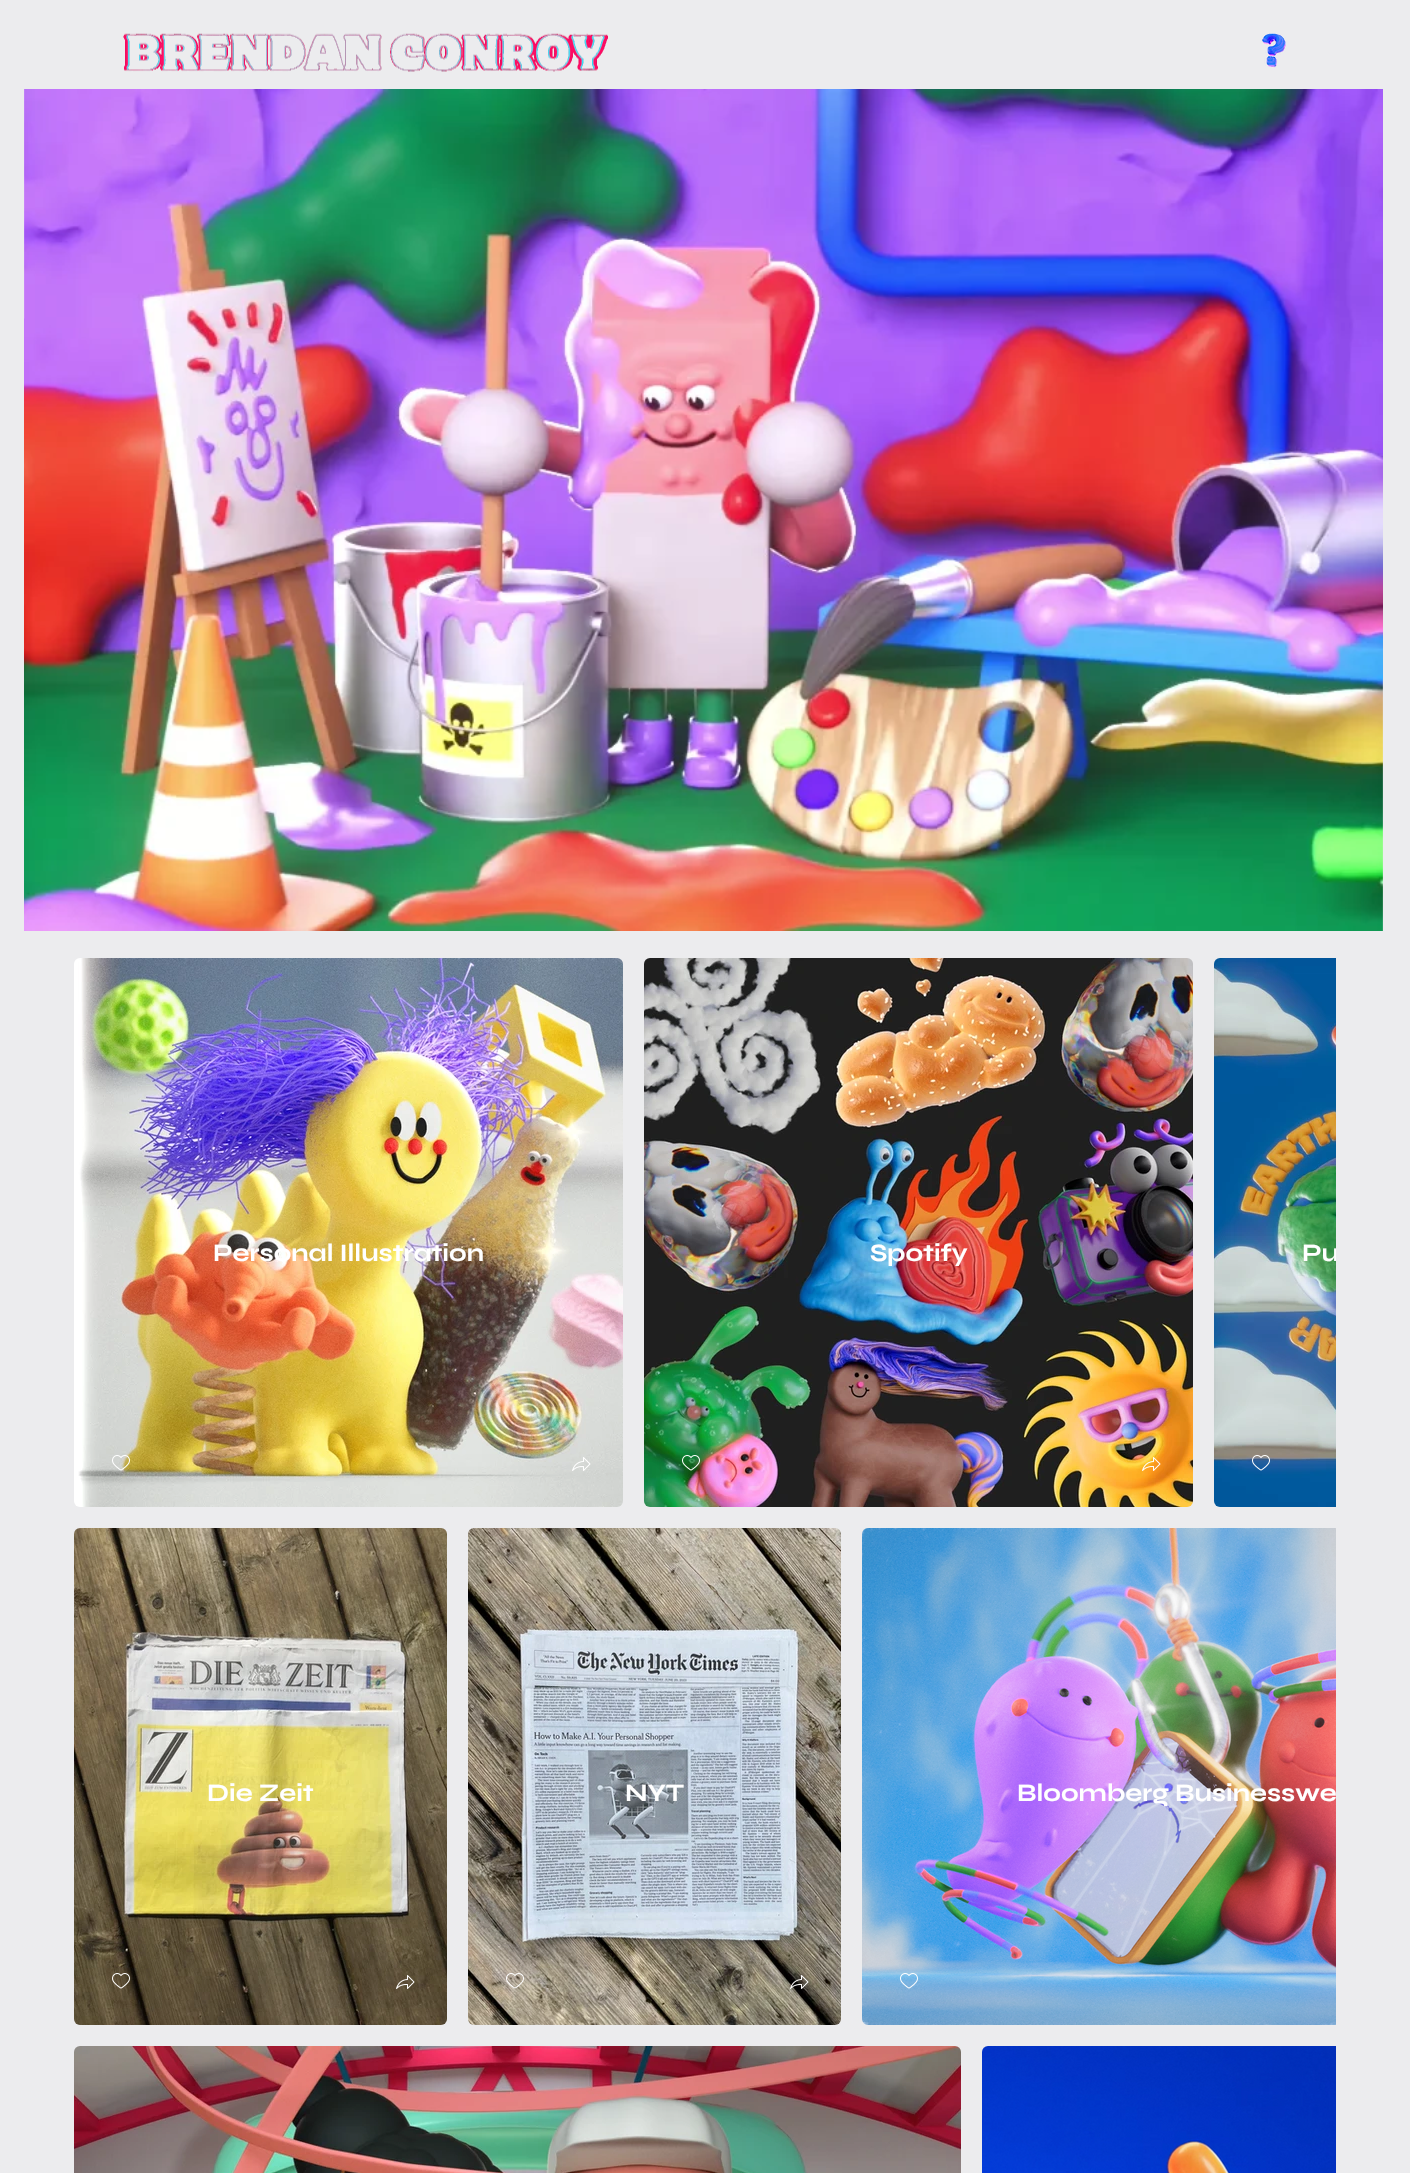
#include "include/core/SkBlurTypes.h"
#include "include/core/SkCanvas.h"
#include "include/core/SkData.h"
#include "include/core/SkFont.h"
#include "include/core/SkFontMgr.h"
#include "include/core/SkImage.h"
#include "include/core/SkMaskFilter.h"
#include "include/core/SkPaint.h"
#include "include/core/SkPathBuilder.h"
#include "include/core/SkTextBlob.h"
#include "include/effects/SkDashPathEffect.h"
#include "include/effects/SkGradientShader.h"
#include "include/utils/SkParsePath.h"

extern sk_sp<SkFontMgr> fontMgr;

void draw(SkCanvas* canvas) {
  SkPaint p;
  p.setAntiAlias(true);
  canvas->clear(SkColorSetRGB(236, 236, 238));
  canvas->drawImageRect(SkImages::DeferredFromEncodedData(SkData::MakeFromFileName("images/1.png")), SkRect::MakeLTRB(123, 33, 608, 72), SkSamplingOptions());
  canvas->drawImageRect(SkImages::DeferredFromEncodedData(SkData::MakeFromFileName("images/2.png")), SkRect::MakeLTRB(1261, 33, 1286, 68), SkSamplingOptions());
  canvas->drawImageRect(SkImages::DeferredFromEncodedData(SkData::MakeFromFileName("images/3.png")), SkRect::MakeLTRB(24, 89, 1383, 931), SkSamplingOptions());
  canvas->drawImageRect(SkImages::DeferredFromEncodedData(SkData::MakeFromFileName("images/4.png")), SkRect::MakeLTRB(74, 958, 623, 1507), SkSamplingOptions());
  canvas->drawImageRect(SkImages::DeferredFromEncodedData(SkData::MakeFromFileName("images/5.png")), SkRect::MakeLTRB(112, 1455, 130, 1471), SkSamplingOptions());
  canvas->drawImageRect(SkImages::DeferredFromEncodedData(SkData::MakeFromFileName("images/6.png")), SkRect::MakeLTRB(572, 1457, 591, 1471), SkSamplingOptions());
  canvas->drawImageRect(SkImages::DeferredFromEncodedData(SkData::MakeFromFileName("images/7.png")), SkRect::MakeLTRB(644, 958, 1193, 1507), SkSamplingOptions());
  canvas->drawImageRect(SkImages::DeferredFromEncodedData(SkData::MakeFromFileName("images/8.png")), SkRect::MakeLTRB(682, 1455, 700, 1471), SkSamplingOptions());
  canvas->drawImageRect(SkImages::DeferredFromEncodedData(SkData::MakeFromFileName("images/9.png")), SkRect::MakeLTRB(1142, 1457, 1161, 1471), SkSamplingOptions());
  canvas->drawImageRect(SkImages::DeferredFromEncodedData(SkData::MakeFromFileName("images/10.png")), SkRect::MakeLTRB(1214, 958, 1336, 1507), SkSamplingOptions());
  canvas->drawImageRect(SkImages::DeferredFromEncodedData(SkData::MakeFromFileName("images/11.png")), SkRect::MakeLTRB(1252, 1455, 1270, 1471), SkSamplingOptions());
  canvas->drawImageRect(SkImages::DeferredFromEncodedData(SkData::MakeFromFileName("images/12.png")), SkRect::MakeLTRB(74, 1528, 447, 2025), SkSamplingOptions());
  canvas->drawImageRect(SkImages::DeferredFromEncodedData(SkData::MakeFromFileName("images/13.png")), SkRect::MakeLTRB(112, 1973, 130, 1989), SkSamplingOptions());
  canvas->drawImageRect(SkImages::DeferredFromEncodedData(SkData::MakeFromFileName("images/14.png")), SkRect::MakeLTRB(396, 1975, 415, 1989), SkSamplingOptions());
  canvas->drawImageRect(SkImages::DeferredFromEncodedData(SkData::MakeFromFileName("images/15.png")), SkRect::MakeLTRB(468, 1528, 841, 2025), SkSamplingOptions());
  canvas->drawImageRect(SkImages::DeferredFromEncodedData(SkData::MakeFromFileName("images/16.png")), SkRect::MakeLTRB(506, 1973, 524, 1989), SkSamplingOptions());
  canvas->drawImageRect(SkImages::DeferredFromEncodedData(SkData::MakeFromFileName("images/17.png")), SkRect::MakeLTRB(790, 1975, 809, 1989), SkSamplingOptions());
  canvas->drawImageRect(SkImages::DeferredFromEncodedData(SkData::MakeFromFileName("images/18.png")), SkRect::MakeLTRB(862, 1528, 1336, 2025), SkSamplingOptions());
  canvas->drawImageRect(SkImages::DeferredFromEncodedData(SkData::MakeFromFileName("images/19.png")), SkRect::MakeLTRB(900, 1973, 918, 1989), SkSamplingOptions());
  canvas->drawImageRect(SkImages::DeferredFromEncodedData(SkData::MakeFromFileName("images/20.png")), SkRect::MakeLTRB(74, 2046, 961, 2173), SkSamplingOptions());
  canvas->drawImageRect(SkImages::DeferredFromEncodedData(SkData::MakeFromFileName("images/21.png")), SkRect::MakeLTRB(982, 2046, 1336, 2173), SkSamplingOptions());
  SkFont font1(fontMgr->matchFamilyStyle("Syne", SkFontStyle::Bold()), 25);
  font1.setSubpixel(true);
  p.setColor(SK_ColorWHITE);
  canvas->drawString("Personal Illustration", 213, 1261, font1, p);
  canvas->drawString("Spotify", 870, 1261, font1, p);
  canvas->save();
  canvas->clipRect(SkRect::MakeLTRB(1214, 1040, 1336, 1507));
  canvas->drawString("Pu", 1302, 1261, font1, p);
  canvas->restore();
  canvas->drawString("Die Zeit", 207, 1801, font1, p);
  canvas->drawString("NYT", 625, 1801, font1, p);
  canvas->drawString("Bloomberg Businesswe", 1017, 1801, font1, p);
}
